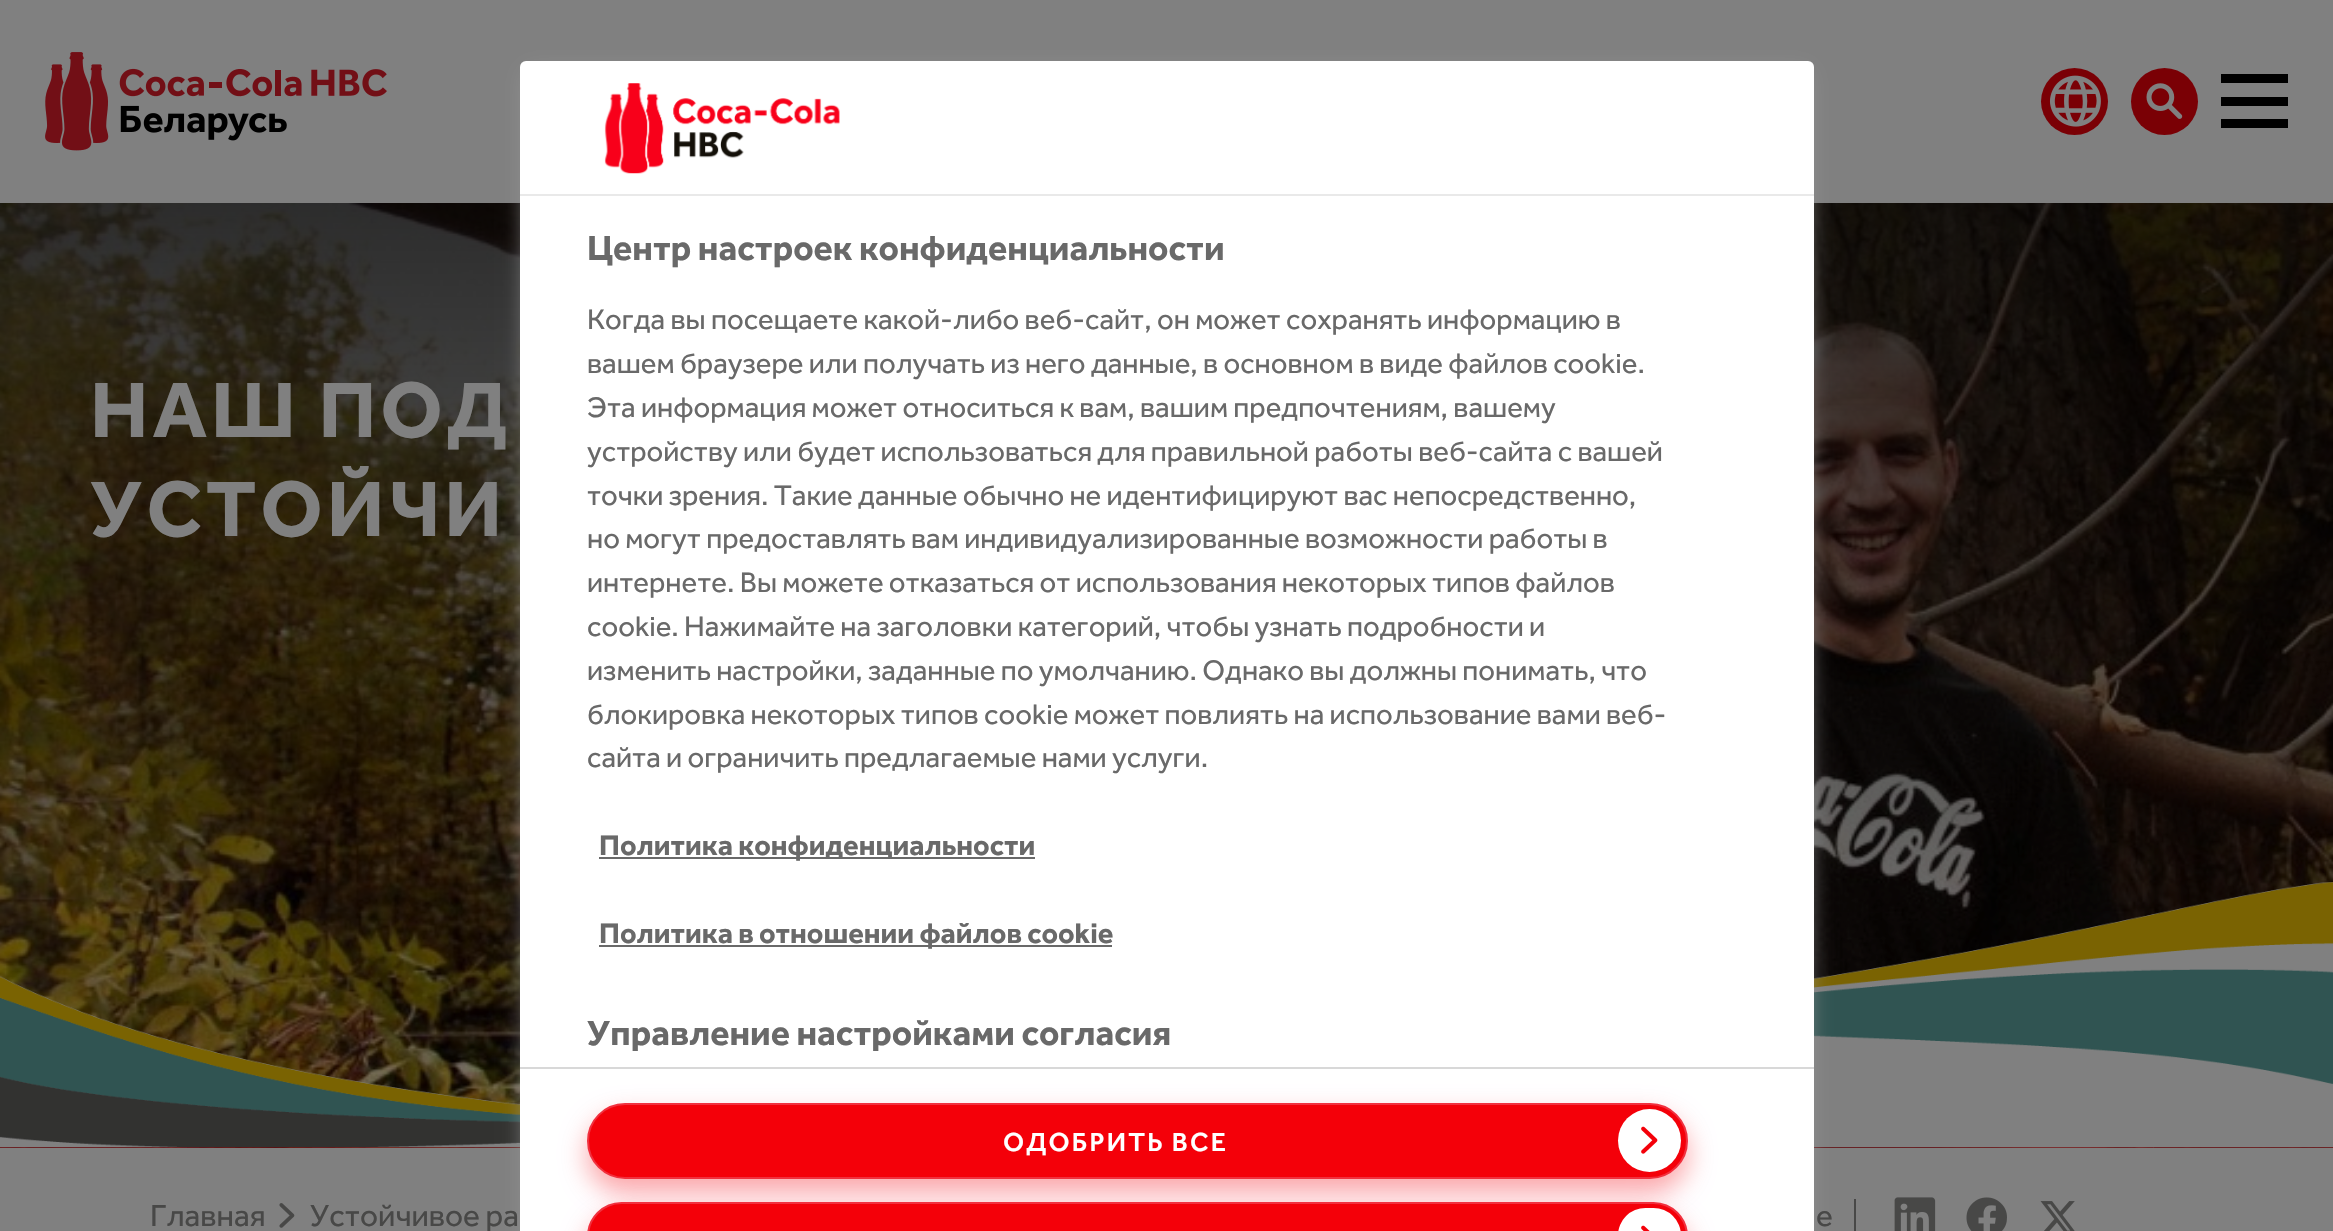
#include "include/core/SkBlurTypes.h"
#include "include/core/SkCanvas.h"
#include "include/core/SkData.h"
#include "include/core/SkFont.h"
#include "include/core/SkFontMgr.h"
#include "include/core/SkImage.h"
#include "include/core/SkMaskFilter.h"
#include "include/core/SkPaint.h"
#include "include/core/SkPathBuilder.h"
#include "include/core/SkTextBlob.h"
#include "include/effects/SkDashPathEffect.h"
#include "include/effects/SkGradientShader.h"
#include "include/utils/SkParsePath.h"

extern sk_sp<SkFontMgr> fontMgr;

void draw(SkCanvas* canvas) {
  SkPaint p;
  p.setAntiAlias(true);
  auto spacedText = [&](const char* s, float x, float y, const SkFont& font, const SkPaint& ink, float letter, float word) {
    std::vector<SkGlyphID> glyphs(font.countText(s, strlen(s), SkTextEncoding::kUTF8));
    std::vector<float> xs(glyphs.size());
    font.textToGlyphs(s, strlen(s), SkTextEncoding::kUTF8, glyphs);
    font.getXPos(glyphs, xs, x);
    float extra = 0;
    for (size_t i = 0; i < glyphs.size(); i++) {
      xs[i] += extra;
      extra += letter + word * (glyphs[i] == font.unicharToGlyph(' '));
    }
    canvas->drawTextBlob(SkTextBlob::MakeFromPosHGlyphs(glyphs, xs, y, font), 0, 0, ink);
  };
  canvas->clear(SkColorSetRGB(128, 128, 128));
  canvas->drawImageRect(SkImages::DeferredFromEncodedData(SkData::MakeFromFileName("images/1.png")), SkRect::MakeLTRB(45, 52, 387, 151), SkSamplingOptions());
  p.setColor(SkColorSetRGB(122, 0, 5));
  canvas->drawCircle(2074.5f, 101.5f, 33.5f, p);
  canvas->drawImageRect(SkImages::DeferredFromEncodedData(SkData::MakeFromFileName("images/2.png")), SkRect::MakeLTRB(2049, 75, 2101, 127), SkSamplingOptions());
  canvas->drawCircle(2164.5f, 101.5f, 33.5f, p);
  canvas->drawImageRect(SkImages::DeferredFromEncodedData(SkData::MakeFromFileName("images/3.png")), SkRect::MakeLTRB(2146, 83, 2183, 119), SkSamplingOptions());
  p.setColor(SK_ColorBLACK);
  canvas->drawRect(SkRect::MakeLTRB(2221, 97, 2288, 106), p);
  canvas->drawRect(SkRect::MakeLTRB(2221, 74, 2288, 83), p);
  canvas->drawRect(SkRect::MakeLTRB(2221, 119, 2288, 128), p);
  p.setColor(SkColorSetRGB(122, 0, 5));
  canvas->drawRect(SkRect::MakeLTRB(0, 1147, 2333, 1148), p);
  canvas->drawImageRect(SkImages::DeferredFromEncodedData(SkData::MakeFromFileName("images/7.png")), SkRect::MakeLTRB(0, 203, 2333, 1148), SkSamplingOptions());
  {
    const SkColor colors[] = {SkColorSetARGB(0, 0, 0, 0), SkColorSetARGB(166, 0, 0, 0)};
    const float stops[] = {0, 1};
    const SkPoint ends[] = {{1167, 1148}, {1167, 203}};
    p.setShader(SkGradientShader::MakeLinear(ends, colors, stops, 2, SkTileMode::kClamp));
    p.setAlpha(255);
  }
  canvas->drawRect(SkRect::MakeLTRB(0, 203, 2333, 1105), p);
  canvas->drawImageRect(SkImages::DeferredFromEncodedData(SkData::MakeFromFileName("images/8.png")), SkRect::MakeLTRB(0, 882, 2333, 1148), SkSamplingOptions());
  p.setShader(nullptr);
  p.setColor(SkColorSetRGB(153, 153, 153));
  p.setMaskFilter(SkMaskFilter::MakeBlur(kNormal_SkBlurStyle, 11));
  canvas->drawRect(SkRect::MakeLTRB(527, 72, 1807, 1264), p);
  p.setMaskFilter(nullptr);
  p.setColor(SK_ColorWHITE);
  canvas->drawRoundRect(SkRect::MakeLTRB(520, 61, 1814, 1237), 6, 6, p);
  p.setColor(SkColorSetRGB(233, 233, 233));
  canvas->drawRect(SkRect::MakeLTRB(520, 194, 1814, 196), p);
  canvas->drawImageRect(SkImages::DeferredFromEncodedData(SkData::MakeFromFileName("images/4.png")), SkRect::MakeLTRB(604, 83, 840, 174), SkSamplingOptions());
  p.setColor(SkColorSetRGB(105, 105, 105));
  canvas->drawRect(SkRect::MakeLTRB(599, 857, 1035, 859), p);
  canvas->drawRect(SkRect::MakeLTRB(599, 945, 1112, 947), p);
  p.setColor(SkColorSetRGB(216, 216, 216));
  canvas->drawRect(SkRect::MakeLTRB(520, 1067, 1814, 1069), p);
  p.setColor(SkColorSetARGB(89, 244, 0, 9));
  p.setMaskFilter(SkMaskFilter::MakeBlur(kNormal_SkBlurStyle, 13.5f));
  canvas->drawRoundRect(SkRect::MakeLTRB(587, 1116, 1688, 1193), 38.5f, 38.5f, p);
  p.setMaskFilter(nullptr);
  p.setColor(SkColorSetRGB(244, 0, 9));
  canvas->drawRoundRect(SkRect::MakeLTRB(588, 1104, 1687, 1178), 37, 37, p);
  p.setStyle(SkPaint::kStroke_Style);
  p.setStrokeWidth(2);
  p.setColor(SkColorSetRGB(241, 48, 62));
  canvas->drawRoundRect(SkRect::MakeLTRB(588, 1104, 1687, 1178), 37, 37, p);
  p.setStyle(SkPaint::kFill_Style);
  p.setColor(SK_ColorWHITE);
  canvas->drawCircle(1649.5f, 1140.5f, 31.5f, p);
  canvas->drawImageRect(SkImages::DeferredFromEncodedData(SkData::MakeFromFileName("images/5.png")), SkRect::MakeLTRB(1641, 1126, 1658, 1154), SkSamplingOptions());
  p.setColor(SkColorSetARGB(89, 244, 0, 9));
  p.setMaskFilter(SkMaskFilter::MakeBlur(kNormal_SkBlurStyle, 13.5f));
  canvas->drawRoundRect(SkRect::MakeLTRB(587, 1215, 1688, 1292), 38.5f, 38.5f, p);
  p.setMaskFilter(nullptr);
  p.setColor(SkColorSetRGB(244, 0, 9));
  canvas->drawRoundRect(SkRect::MakeLTRB(588, 1203, 1687, 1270), 37, 37, p);
  p.setStyle(SkPaint::kStroke_Style);
  p.setColor(SkColorSetRGB(241, 48, 62));
  canvas->drawRoundRect(SkRect::MakeLTRB(588, 1203, 1687, 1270), 37, 37, p);
  p.setStyle(SkPaint::kFill_Style);
  p.setColor(SK_ColorWHITE);
  canvas->drawRoundRect(SkRect::MakeLTRB(1618, 1208, 1681, 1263), 31.5f, 31.5f, p);
  canvas->drawImageRect(SkImages::DeferredFromEncodedData(SkData::MakeFromFileName("images/6.png")), SkRect::MakeLTRB(1641, 1225, 1650, 1231), SkSamplingOptions());
  p.setColor(SkColorSetRGB(128, 128, 128));
  canvas->drawPath(SkPathBuilder().moveTo(2153, 1147.5f).lineTo(2153, 1125).lineTo(2164.5f, 1136).close().detach(), p);
  canvas->drawImageRect(SkImages::DeferredFromEncodedData(SkData::MakeFromFileName("images/9.png")), SkRect::MakeLTRB(279, 1203, 295, 1228), SkSamplingOptions());
  p.setColor(SkColorSetRGB(72, 72, 71));
  canvas->drawRect(SkRect::MakeLTRB(1854, 1199, 1856, 1231), p);
  canvas->drawImageRect(SkImages::DeferredFromEncodedData(SkData::MakeFromFileName("images/10.png")), SkRect::MakeLTRB(1894, 1197, 1936, 1231), SkSamplingOptions());
  canvas->drawImageRect(SkImages::DeferredFromEncodedData(SkData::MakeFromFileName("images/11.png")), SkRect::MakeLTRB(1966, 1197, 2007, 1231), SkSamplingOptions());
  canvas->drawImageRect(SkImages::DeferredFromEncodedData(SkData::MakeFromFileName("images/12.png")), SkRect::MakeLTRB(2040, 1201, 2075, 1231), SkSamplingOptions());
  SkFont font1(fontMgr->matchFamilyStyle("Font", SkFontStyle::Bold()), 36);
  font1.setSubpixel(true);
  p.setColor(SkColorSetRGB(105, 105, 105));
  canvas->drawString("Центр настроек конфиденциальности", 587, 260, font1, p);
  SkFont font2(fontMgr->matchFamilyStyle("Font", SkFontStyle::Normal()), 29.25f);
  font2.setSubpixel(true);
  canvas->drawString("Когда вы посещаете какой-либо веб-сайт, он может сохранять информацию в", 587, 329, font2, p);
  canvas->drawString("вашем браузере или получать из него данные, в основном в виде файлов cookie.", 587, 373, font2, p);
  canvas->drawString("Эта информация может относиться к вам, вашим предпочтениям, вашему", 587, 417, font2, p);
  canvas->drawString("устройству или будет использоваться для правильной работы веб-сайта с вашей", 587, 461, font2, p);
  canvas->drawString("точки зрения. Такие данные обычно не идентифицируют вас непосредственно,", 587, 505, font2, p);
  canvas->drawString("но могут предоставлять вам индивидуализированные возможности работы в", 587, 548, font2, p);
  canvas->drawString("интернете. Вы можете отказаться от использования некоторых типов файлов", 587, 592, font2, p);
  canvas->drawString("cookie. Нажимайте на заголовки категорий, чтобы узнать подробности и", 587, 636, font2, p);
  canvas->drawString("изменить настройки, заданные по умолчанию. Однако вы должны понимать, что", 587, 680, font2, p);
  canvas->drawString("блокировка некоторых типов cookie может повлиять на использование вами веб-", 587, 724, font2, p);
  canvas->drawString("сайта и ограничить предлагаемые нами услуги.", 587, 767, font2, p);
  SkFont font3(fontMgr->matchFamilyStyle("Font", SkFontStyle::Bold()), 29.25f);
  font3.setSubpixel(true);
  canvas->drawString("Политика конфиденциальности", 599, 855, font3, p);
  canvas->drawString("Политика в отношении файлов cookie", 599, 943, font3, p);
  canvas->save();
  canvas->clipRect(SkRect::MakeLTRB(587, 198, 1739, 1051));
  canvas->drawString("Управление настройками согласия", 587, 1045, font1, p);
  canvas->restore();
  SkFont font4(fontMgr->matchFamilyStyle("Font", SkFontStyle(500, SkFontStyle::kNormal_Width, SkFontStyle::kUpright_Slant)), 27);
  font4.setSubpixel(true);
  p.setColor(SK_ColorWHITE);
  spacedText("ОДОБРИТЬ ВСЕ", 1003, 1151, font4, p, 2.2f, 0);
  SkFont font5(fontMgr->matchFamilyStyle("Font", SkFontStyle::Bold()), 81);
  font5.setSubpixel(true);
  p.setColor(SkColorSetRGB(128, 128, 128));
  spacedText("НАШ ПОД", 90, 437, font5, p, 4, 0);
  spacedText("УСТОЙЧИ", 90, 536, font5, p, 4, 0);
  SkFont font6(fontMgr->matchFamilyStyle("Font", SkFontStyle::Normal()), 31.5f);
  font6.setSubpixel(true);
  p.setColor(SkColorSetRGB(72, 72, 71));
  canvas->drawString("Главная", 150, 1226, font6, p);
  canvas->drawString("Устойчивое ра", 310, 1226, font6, p);
  canvas->drawString("e", 1816, 1226, font6, p);
}
